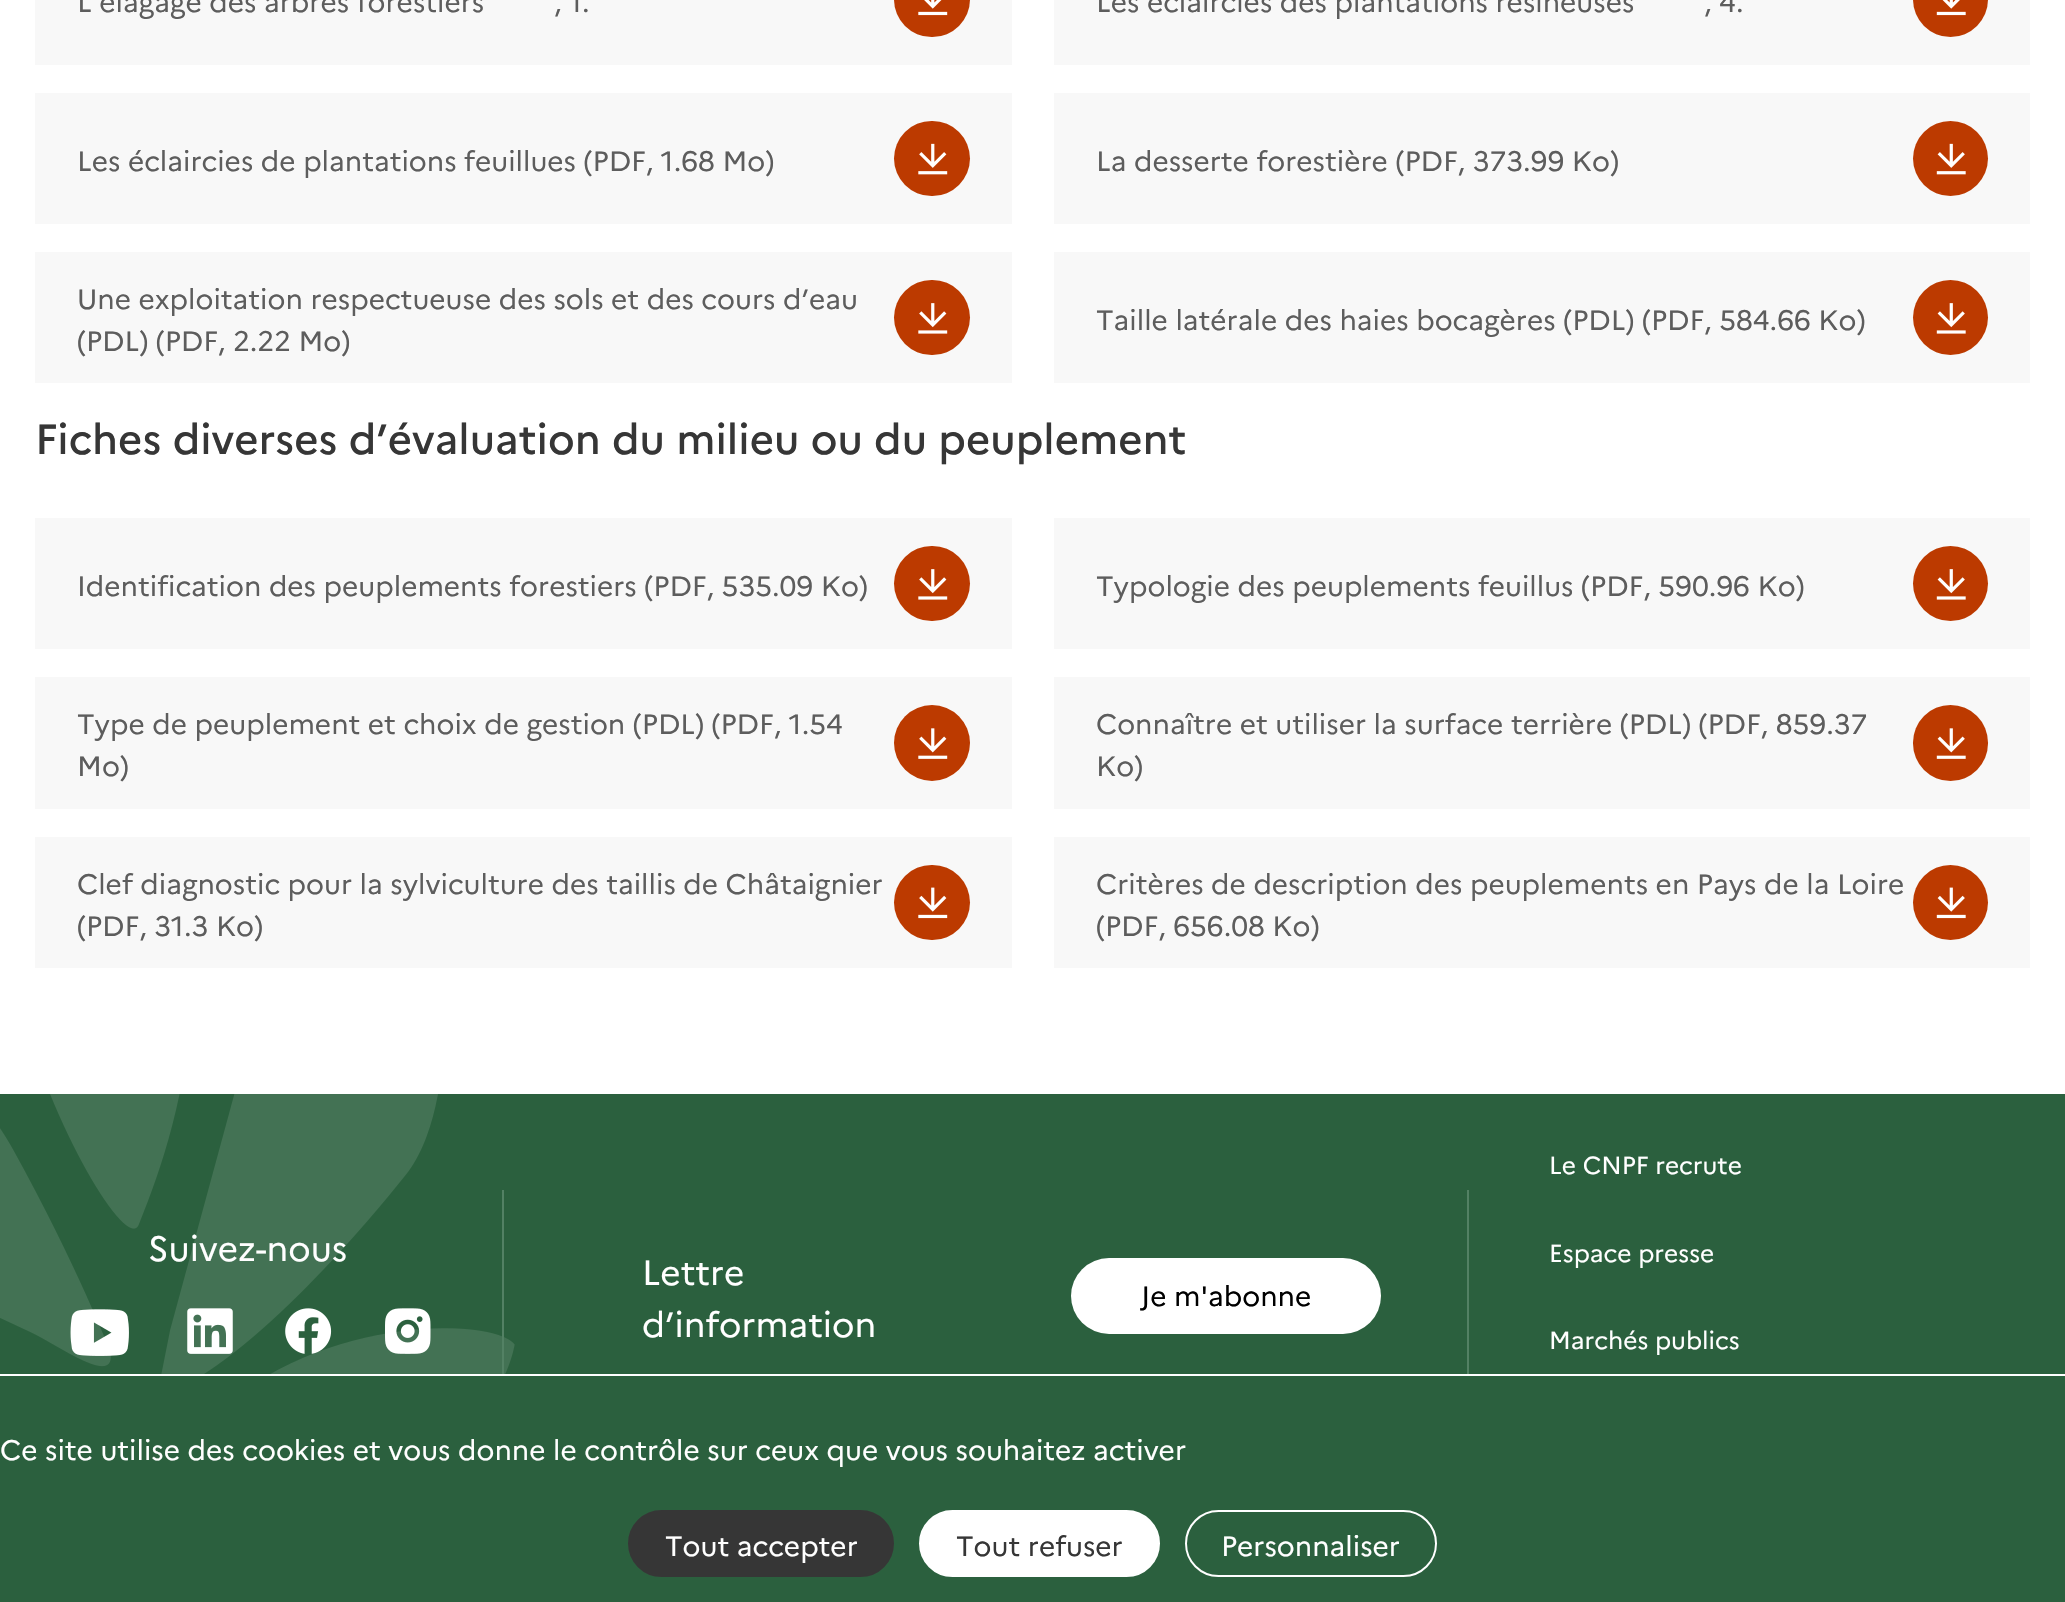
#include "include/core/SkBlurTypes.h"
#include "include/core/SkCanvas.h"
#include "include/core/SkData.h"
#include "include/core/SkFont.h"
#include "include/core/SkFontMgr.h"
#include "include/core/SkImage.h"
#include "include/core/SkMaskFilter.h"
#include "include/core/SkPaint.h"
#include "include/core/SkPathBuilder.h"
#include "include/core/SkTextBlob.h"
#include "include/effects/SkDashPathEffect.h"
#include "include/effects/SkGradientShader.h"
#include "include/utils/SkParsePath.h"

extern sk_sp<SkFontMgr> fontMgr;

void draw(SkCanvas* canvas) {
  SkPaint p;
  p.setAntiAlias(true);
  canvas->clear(SK_ColorWHITE);
  p.setColor(SkColorSetRGB(248, 248, 248));
  canvas->drawRect(SkRect::MakeLTRB(35, 0, 1012, 65), p);
  p.setColor(SkColorSetRGB(188, 58, 0));
  canvas->drawRoundRect(SkRect::MakeLTRB(894, -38, 970, 37), 37.5f, 37.5f, p);
  canvas->drawImageRect(SkImages::DeferredFromEncodedData(SkData::MakeFromFileName("images/1.png")), SkRect::MakeLTRB(918, 0, 948, 16), SkSamplingOptions());
  p.setColor(SkColorSetRGB(248, 248, 248));
  canvas->drawRect(SkRect::MakeLTRB(1054, 0, 2030, 65), p);
  p.setColor(SkColorSetRGB(188, 58, 0));
  canvas->drawCircle(1950.5f, -0.5f, 37.5f, p);
  canvas->drawImageRect(SkImages::DeferredFromEncodedData(SkData::MakeFromFileName("images/2.png")), SkRect::MakeLTRB(1936, 0, 1966, 16), SkSamplingOptions());
  p.setColor(SkColorSetRGB(248, 248, 248));
  canvas->drawRect(SkRect::MakeLTRB(35, 93, 1012, 224), p);
  p.setColor(SkColorSetRGB(188, 58, 0));
  canvas->drawRoundRect(SkRect::MakeLTRB(894, 121, 970, 196), 37.5f, 37.5f, p);
  canvas->drawImageRect(SkImages::DeferredFromEncodedData(SkData::MakeFromFileName("images/3.png")), SkRect::MakeLTRB(918, 143, 948, 175), SkSamplingOptions());
  p.setColor(SkColorSetRGB(248, 248, 248));
  canvas->drawRect(SkRect::MakeLTRB(1054, 93, 2030, 224), p);
  p.setColor(SkColorSetRGB(188, 58, 0));
  canvas->drawCircle(1950.5f, 158.5f, 37.5f, p);
  canvas->drawImageRect(SkImages::DeferredFromEncodedData(SkData::MakeFromFileName("images/4.png")), SkRect::MakeLTRB(1936, 143, 1966, 175), SkSamplingOptions());
  p.setColor(SkColorSetRGB(248, 248, 248));
  canvas->drawRect(SkRect::MakeLTRB(35, 252, 1012, 383), p);
  p.setColor(SkColorSetRGB(188, 58, 0));
  canvas->drawRoundRect(SkRect::MakeLTRB(894, 280, 970, 355), 37.5f, 37.5f, p);
  canvas->drawImageRect(SkImages::DeferredFromEncodedData(SkData::MakeFromFileName("images/5.png")), SkRect::MakeLTRB(918, 303, 948, 334), SkSamplingOptions());
  p.setColor(SkColorSetRGB(248, 248, 248));
  canvas->drawRect(SkRect::MakeLTRB(1054, 252, 2030, 383), p);
  p.setColor(SkColorSetRGB(188, 58, 0));
  canvas->drawCircle(1950.5f, 317.5f, 37.5f, p);
  canvas->drawImageRect(SkImages::DeferredFromEncodedData(SkData::MakeFromFileName("images/6.png")), SkRect::MakeLTRB(1936, 303, 1966, 334), SkSamplingOptions());
  p.setColor(SkColorSetRGB(248, 248, 248));
  canvas->drawRect(SkRect::MakeLTRB(35, 518, 1012, 649), p);
  p.setColor(SkColorSetRGB(188, 58, 0));
  canvas->drawRoundRect(SkRect::MakeLTRB(894, 546, 970, 621), 37.5f, 37.5f, p);
  canvas->drawImageRect(SkImages::DeferredFromEncodedData(SkData::MakeFromFileName("images/5.png")), SkRect::MakeLTRB(918, 569, 948, 600), SkSamplingOptions());
  p.setColor(SkColorSetRGB(248, 248, 248));
  canvas->drawRect(SkRect::MakeLTRB(1054, 518, 2030, 649), p);
  p.setColor(SkColorSetRGB(188, 58, 0));
  canvas->drawCircle(1950.5f, 583.5f, 37.5f, p);
  canvas->drawImageRect(SkImages::DeferredFromEncodedData(SkData::MakeFromFileName("images/6.png")), SkRect::MakeLTRB(1936, 569, 1966, 600), SkSamplingOptions());
  p.setColor(SkColorSetRGB(248, 248, 248));
  canvas->drawRect(SkRect::MakeLTRB(35, 677, 1012, 809), p);
  p.setColor(SkColorSetRGB(188, 58, 0));
  canvas->drawCircle(932, 743, 38, p);
  canvas->drawImageRect(SkImages::DeferredFromEncodedData(SkData::MakeFromFileName("images/7.png")), SkRect::MakeLTRB(918, 728, 948, 759), SkSamplingOptions());
  p.setColor(SkColorSetRGB(248, 248, 248));
  canvas->drawRect(SkRect::MakeLTRB(1054, 677, 2030, 809), p);
  p.setColor(SkColorSetRGB(188, 58, 0));
  canvas->drawRoundRect(SkRect::MakeLTRB(1913, 705, 1988, 781), 37.5f, 37.5f, p);
  canvas->drawImageRect(SkImages::DeferredFromEncodedData(SkData::MakeFromFileName("images/8.png")), SkRect::MakeLTRB(1936, 728, 1966, 759), SkSamplingOptions());
  p.setColor(SkColorSetRGB(248, 248, 248));
  canvas->drawRect(SkRect::MakeLTRB(35, 837, 1012, 968), p);
  p.setColor(SkColorSetRGB(188, 58, 0));
  canvas->drawRoundRect(SkRect::MakeLTRB(894, 865, 970, 940), 37.5f, 37.5f, p);
  canvas->drawImageRect(SkImages::DeferredFromEncodedData(SkData::MakeFromFileName("images/9.png")), SkRect::MakeLTRB(918, 887, 948, 919), SkSamplingOptions());
  p.setColor(SkColorSetRGB(248, 248, 248));
  canvas->drawRect(SkRect::MakeLTRB(1054, 837, 2030, 968), p);
  p.setColor(SkColorSetRGB(188, 58, 0));
  canvas->drawCircle(1950.5f, 902.5f, 37.5f, p);
  canvas->drawImageRect(SkImages::DeferredFromEncodedData(SkData::MakeFromFileName("images/10.png")), SkRect::MakeLTRB(1936, 887, 1966, 919), SkSamplingOptions());
  p.setColor(SkColorSetRGB(43, 96, 62));
  canvas->drawRect(SkRect::MakeLTRB(0, 1094, 2065, 1374), p);
  canvas->drawImageRect(SkImages::DeferredFromEncodedData(SkData::MakeFromFileName("images/11.png")), SkRect::MakeLTRB(0, 1094, 515, 1374), SkSamplingOptions());
  canvas->drawImageRect(SkImages::DeferredFromEncodedData(SkData::MakeFromFileName("images/12.png")), SkRect::MakeLTRB(70, 1309, 129, 1356), SkSamplingOptions());
  canvas->drawImageRect(SkImages::DeferredFromEncodedData(SkData::MakeFromFileName("images/13.png")), SkRect::MakeLTRB(187, 1308, 233, 1354), SkSamplingOptions());
  canvas->drawImageRect(SkImages::DeferredFromEncodedData(SkData::MakeFromFileName("images/14.png")), SkRect::MakeLTRB(285, 1308, 332, 1354), SkSamplingOptions());
  canvas->drawImageRect(SkImages::DeferredFromEncodedData(SkData::MakeFromFileName("images/15.png")), SkRect::MakeLTRB(385, 1308, 431, 1354), SkSamplingOptions());
  p.setColor(SkColorSetRGB(83, 129, 100));
  canvas->drawRect(SkRect::MakeLTRB(502, 1190, 504, 1374), p);
  p.setColor(SK_ColorWHITE);
  canvas->drawRoundRect(SkRect::MakeLTRB(1071, 1258, 1381, 1334), 38, 38, p);
  p.setColor(SkColorSetRGB(83, 129, 100));
  canvas->drawRect(SkRect::MakeLTRB(1467, 1190, 1469, 1374), p);
  p.setColor(SkColorSetRGB(43, 96, 62));
  canvas->drawRect(SkRect::MakeLTRB(0, 1376, 2065, 1602), p);
  p.setColor(SkColorSetRGB(54, 54, 54));
  canvas->drawRoundRect(SkRect::MakeLTRB(629, 1511, 893, 1576), 32.5f, 32.5f, p);
  p.setStyle(SkPaint::kStroke_Style);
  p.setStrokeWidth(2);
  canvas->drawRoundRect(SkRect::MakeLTRB(629, 1511, 893, 1576), 32.5f, 32.5f, p);
  p.setStyle(SkPaint::kFill_Style);
  p.setColor(SK_ColorWHITE);
  canvas->drawRoundRect(SkRect::MakeLTRB(920, 1511, 1159, 1576), 32.5f, 32.5f, p);
  p.setStyle(SkPaint::kStroke_Style);
  canvas->drawRoundRect(SkRect::MakeLTRB(920, 1511, 1159, 1576), 32.5f, 32.5f, p);
  canvas->drawRoundRect(SkRect::MakeLTRB(1186, 1511, 1436, 1576), 32.5f, 32.5f, p);
  SkFont font1(fontMgr->matchFamilyStyle("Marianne", SkFontStyle::Normal()), 28);
  font1.setSubpixel(true);
  p.setStyle(SkPaint::kFill_Style);
  p.setColor(SkColorSetRGB(93, 93, 93));
  canvas->drawString("L’élagage des arbres forestiers", 77, 12, font1, p);
  canvas->drawString(", 1.", 554, 12, font1, p);
  canvas->drawString("Les éclaircies des plantations résineuses", 1096, 12, font1, p);
  canvas->drawString(", 4.", 1704, 12, font1, p);
  canvas->drawString("Les éclaircies de plantations feuillues (PDF, 1.68 Mo)", 77, 171, font1, p);
  canvas->drawString("La desserte forestière (PDF, 373.99 Ko)", 1096, 171, font1, p);
  canvas->drawString("Une exploitation respectueuse des sols et des cours d’eau", 77, 309, font1, p);
  canvas->drawString("(PDL) (PDF, 2.22 Mo)", 77, 351, font1, p);
  canvas->drawString("Taille latérale des haies bocagères (PDL) (PDF, 584.66 Ko)", 1096, 330, font1, p);
  SkFont font2(fontMgr->matchFamilyStyle("Marianne", SkFontStyle(500, SkFontStyle::kNormal_Width, SkFontStyle::kUpright_Slant)), 42);
  font2.setSubpixel(true);
  p.setColor(SkColorSetRGB(54, 54, 54));
  canvas->drawString("Fiches diverses d’évaluation du milieu ou du peuplement", 35, 454, font2, p);
  p.setColor(SkColorSetRGB(93, 93, 93));
  canvas->drawString("Identification des peuplements forestiers (PDF, 535.09 Ko)", 77, 596, font1, p);
  canvas->drawString("Typologie des peuplements feuillus (PDF, 590.96 Ko)", 1096, 596, font1, p);
  canvas->drawString("Type de peuplement et choix de gestion (PDL) (PDF, 1.54", 77, 734, font1, p);
  canvas->drawString("Mo)", 77, 776, font1, p);
  canvas->drawString("Connaître et utiliser la surface terrière (PDL) (PDF, 859.37", 1096, 734, font1, p);
  canvas->drawString("Ko)", 1096, 776, font1, p);
  canvas->drawString("Clef diagnostic pour la sylviculture des taillis de Châtaignier", 77, 894, font1, p);
  canvas->drawString("(PDF, 31.3 Ko)", 77, 936, font1, p);
  canvas->drawString("Critères de description des peuplements en Pays de la Loire", 1096, 894, font1, p);
  canvas->drawString("(PDF, 656.08 Ko)", 1096, 936, font1, p);
  SkFont font3(fontMgr->matchFamilyStyle("Marianne", SkFontStyle::Normal()), 35);
  font3.setSubpixel(true);
  p.setColor(SK_ColorWHITE);
  canvas->drawString("Suivez-nous", 148, 1261, font3, p);
  SkFont font4(fontMgr->matchFamilyStyle("Marianne", SkFontStyle::Normal()), 24.5f);
  font4.setSubpixel(true);
  canvas->drawString("Le CNPF recrute", 1549, 1174, font4, p);
  canvas->drawString("Espace presse", 1549, 1262, font4, p);
  canvas->drawString("Marchés publics", 1549, 1349, font4, p);
  canvas->drawString("Lettre", 642, 1285, font3, p);
  canvas->drawString("d’information", 642, 1337, font3, p);
  p.setColor(SK_ColorBLACK);
  canvas->drawString("Je m'abonne", 1141, 1306, font1, p);
  p.setColor(SK_ColorWHITE);
  canvas->drawString("Ce site utilise des cookies et vous donne le contrôle sur ceux que vous souhaitez activer", 0, 1460, font1, p);
  canvas->drawString("Tout accepter", 665, 1556, font1, p);
  p.setColor(SkColorSetRGB(54, 54, 54));
  canvas->drawString("Tout refuser", 956, 1556, font1, p);
  p.setColor(SK_ColorWHITE);
  canvas->drawString("Personnaliser", 1221, 1556, font1, p);
}
